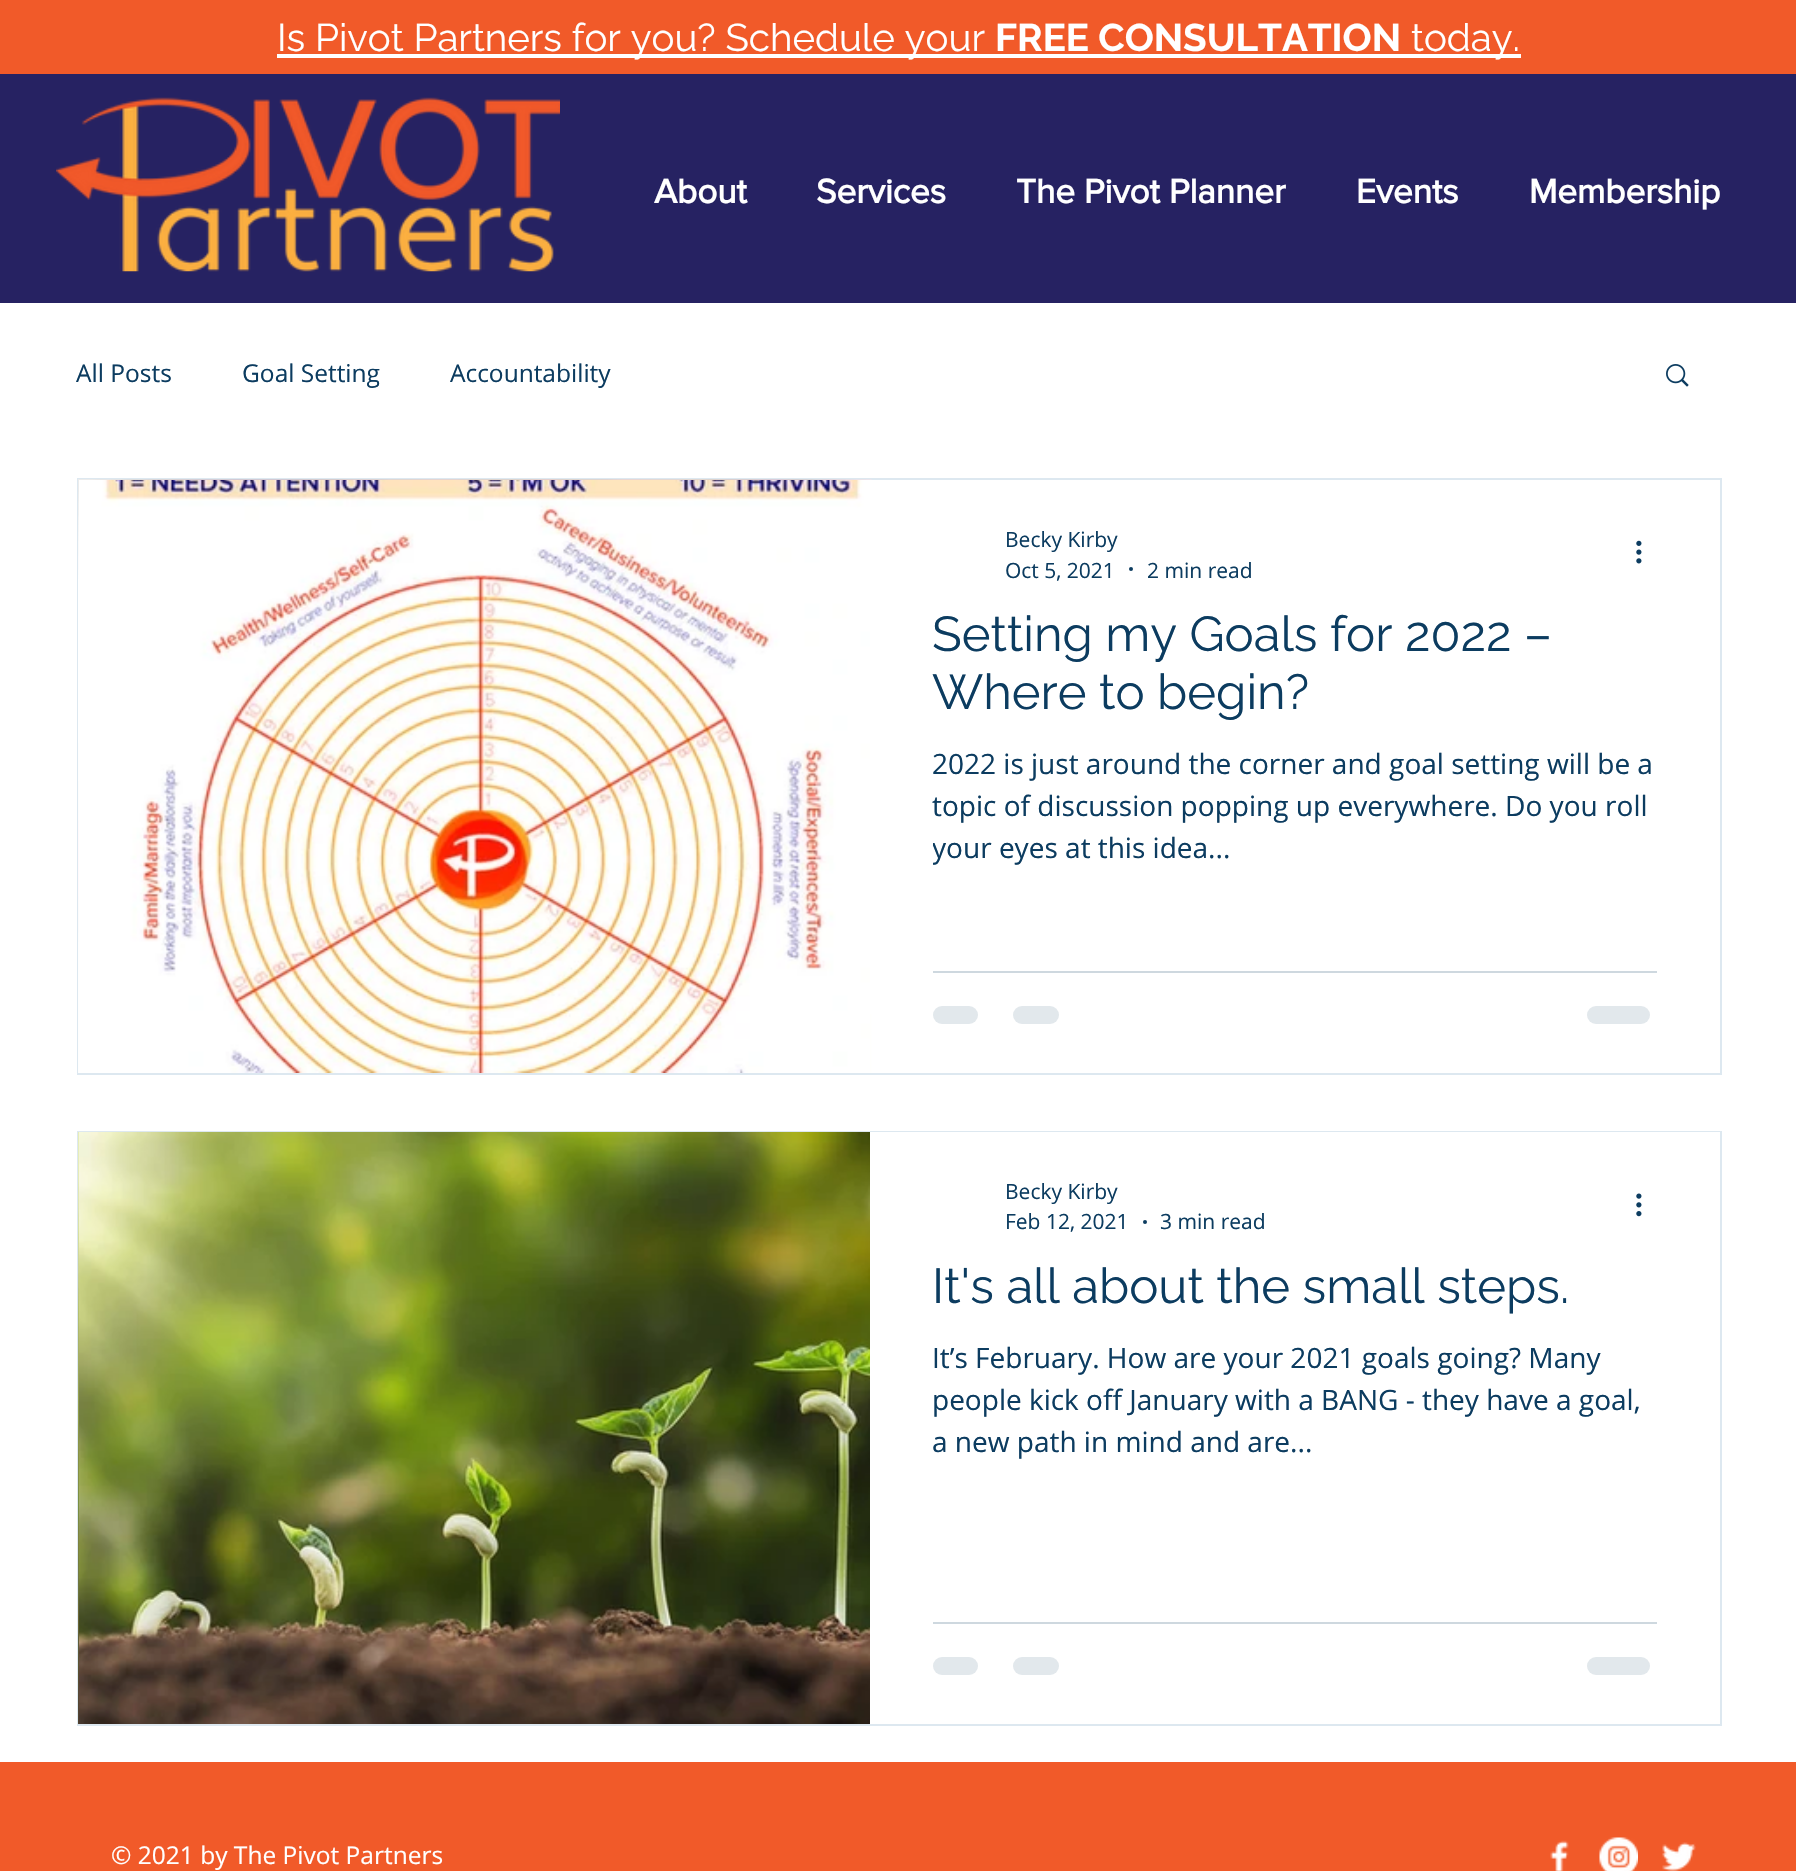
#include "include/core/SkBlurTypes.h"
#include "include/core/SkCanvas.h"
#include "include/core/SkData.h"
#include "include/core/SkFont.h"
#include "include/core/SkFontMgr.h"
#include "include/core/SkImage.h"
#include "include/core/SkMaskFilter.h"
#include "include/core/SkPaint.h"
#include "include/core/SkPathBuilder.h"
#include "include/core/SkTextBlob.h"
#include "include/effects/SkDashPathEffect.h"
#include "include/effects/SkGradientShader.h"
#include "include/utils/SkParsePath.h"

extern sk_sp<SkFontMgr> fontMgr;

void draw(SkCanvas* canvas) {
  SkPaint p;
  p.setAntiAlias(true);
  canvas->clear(SK_ColorWHITE);
  p.setColor(SkColorSetRGB(241, 90, 41));
  canvas->drawRect(SkRect::MakeLTRB(0, 0, 1796, 74), p);
  p.setColor(SK_ColorWHITE);
  canvas->drawRect(SkRect::MakeLTRB(277, 54, 1521, 58), p);
  p.setColor(SkColorSetRGB(38, 34, 98));
  canvas->drawRect(SkRect::MakeLTRB(0, 74, 1796, 303), p);
  canvas->drawImageRect(SkImages::DeferredFromEncodedData(SkData::MakeFromFileName("images/1.png")), SkRect::MakeLTRB(56, 97, 560, 272), SkSamplingOptions());
  canvas->drawImageRect(SkImages::DeferredFromEncodedData(SkData::MakeFromFileName("images/2.png")), SkRect::MakeLTRB(1666, 364, 1689, 387), SkSamplingOptions());
  p.setStyle(SkPaint::kStroke_Style);
  p.setStrokeWidth(2);
  p.setColor(SkColorSetRGB(221, 232, 240));
  canvas->drawRect(SkRect::MakeLTRB(78, 479, 1721, 1074), p);
  canvas->drawImageRect(SkImages::DeferredFromEncodedData(SkData::MakeFromFileName("images/3.png")), SkRect::MakeLTRB(78, 479, 872, 1073), SkSamplingOptions());
  canvas->drawImageRect(SkImages::DeferredFromEncodedData(SkData::MakeFromFileName("images/4.png")), SkRect::MakeLTRB(79, 480, 870, 1073), SkSamplingOptions());
  p.setStyle(SkPaint::kFill_Style);
  p.setColor(SK_ColorWHITE);
  canvas->drawRect(SkRect::MakeLTRB(870, 480, 872, 1014), p);
  p.setColor(SkColorSetRGB(12, 60, 96));
  canvas->drawCircle(1131, 569, 2, p);
  canvas->drawImageRect(SkImages::DeferredFromEncodedData(SkData::MakeFromFileName("images/5.png")), SkRect::MakeLTRB(1636, 540, 1642, 564), SkSamplingOptions());
  p.setColor(SkColorSetRGB(206, 216, 223));
  canvas->drawRect(SkRect::MakeLTRB(933, 971, 1657, 973), p);
  p.setColor(SkColorSetRGB(226, 232, 236));
  canvas->drawRoundRect(SkRect::MakeLTRB(933, 1006, 978, 1024), 9, 9, p);
  canvas->drawRoundRect(SkRect::MakeLTRB(1013, 1006, 1059, 1024), 9, 9, p);
  canvas->drawRoundRect(SkRect::MakeLTRB(1587, 1006, 1650, 1024), 9, 9, p);
  p.setStyle(SkPaint::kStroke_Style);
  p.setColor(SkColorSetRGB(221, 232, 240));
  canvas->drawRect(SkRect::MakeLTRB(78, 1132, 1721, 1725), p);
  canvas->drawImageRect(SkImages::DeferredFromEncodedData(SkData::MakeFromFileName("images/6.png")), SkRect::MakeLTRB(78, 1132, 79, 1724), SkSamplingOptions());
  canvas->drawImageRect(SkImages::DeferredFromEncodedData(SkData::MakeFromFileName("images/7.png")), SkRect::MakeLTRB(79, 1132, 870, 1724), SkSamplingOptions());
  p.setStyle(SkPaint::kFill_Style);
  p.setColor(SK_ColorWHITE);
  canvas->drawRect(SkRect::MakeLTRB(870, 1132, 1720, 1133), p);
  p.setColor(SkColorSetRGB(12, 60, 96));
  canvas->drawCircle(1145, 1222, 2, p);
  canvas->drawImageRect(SkImages::DeferredFromEncodedData(SkData::MakeFromFileName("images/8.png")), SkRect::MakeLTRB(1636, 1193, 1642, 1217), SkSamplingOptions());
  p.setColor(SkColorSetRGB(206, 216, 223));
  canvas->drawRect(SkRect::MakeLTRB(933, 1622, 1657, 1624), p);
  p.setColor(SkColorSetRGB(226, 232, 236));
  canvas->drawRoundRect(SkRect::MakeLTRB(933, 1657, 978, 1675), 9, 9, p);
  canvas->drawRoundRect(SkRect::MakeLTRB(1013, 1657, 1059, 1675), 9, 9, p);
  canvas->drawRoundRect(SkRect::MakeLTRB(1587, 1657, 1650, 1675), 9, 9, p);
  p.setColor(SkColorSetRGB(241, 90, 41));
  canvas->drawRect(SkRect::MakeLTRB(0, 1762, 1796, 1871), p);
  canvas->drawImageRect(SkImages::DeferredFromEncodedData(SkData::MakeFromFileName("images/9.png")), SkRect::MakeLTRB(1550, 1840, 1569, 1871), SkSamplingOptions());
  canvas->drawImageRect(SkImages::DeferredFromEncodedData(SkData::MakeFromFileName("images/10.png")), SkRect::MakeLTRB(1599, 1837, 1638, 1871), SkSamplingOptions());
  canvas->drawImageRect(SkImages::DeferredFromEncodedData(SkData::MakeFromFileName("images/11.png")), SkRect::MakeLTRB(1662, 1842, 1696, 1871), SkSamplingOptions());
  SkFont font1(fontMgr->matchFamilyStyle("Raleway", SkFontStyle::Normal()), 38.5f);
  font1.setSubpixel(true);
  p.setColor(SK_ColorWHITE);
  canvas->drawString("Is Pivot Partners for you? Schedule your", 277, 51, font1, p);
  SkFont font2(fontMgr->matchFamilyStyle("Raleway", SkFontStyle::Bold()), 38.5f);
  font2.setSubpixel(true);
  canvas->drawString("FREE CONSULTATION", 995, 51, font2, p);
  canvas->drawString("today.", 1411, 51, font1, p);
  SkFont font3(fontMgr->matchFamilyStyle("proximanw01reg", SkFontStyle::Bold()), 35);
  font3.setSubpixel(true);
  canvas->drawString("About", 654, 203, font3, p);
  canvas->drawString("Services", 816, 203, font3, p);
  canvas->drawString("The Pivot Planner", 1016, 203, font3, p);
  canvas->drawString("Events", 1356, 203, font3, p);
  canvas->drawString("Membership", 1529, 203, font3, p);
  SkFont font4(fontMgr->matchFamilyStyle("Open Sans", SkFontStyle::Normal()), 24.5f);
  font4.setSubpixel(true);
  p.setColor(SkColorSetRGB(12, 60, 96));
  canvas->drawString("All Posts", 76, 382, font4, p);
  canvas->drawString("Goal Setting", 242, 382, font4, p);
  canvas->drawString("Accountability", 450, 382, font4, p);
  SkFont font5(fontMgr->matchFamilyStyle("Open Sans", SkFontStyle::Normal()), 21);
  font5.setSubpixel(true);
  canvas->drawString("Becky Kirby", 1005, 547, font5, p);
  canvas->drawString("Oct 5, 2021", 1005, 578, font5, p);
  canvas->drawString("2 min read", 1147, 578, font5, p);
  SkFont font6(fontMgr->matchFamilyStyle("Raleway", SkFontStyle::Normal()), 49);
  font6.setSubpixel(true);
  canvas->drawString("Setting my Goals for 2022 –", 932, 651, font6, p);
  canvas->drawString("Where to begin?", 932, 709, font6, p);
  SkFont font7(fontMgr->matchFamilyStyle("Open Sans", SkFontStyle::Normal()), 28);
  font7.setSubpixel(true);
  canvas->drawString("2022 is just around the corner and goal setting will be a", 932, 774, font7, p);
  canvas->drawString("topic of discussion popping up everywhere. Do you roll", 932, 816, font7, p);
  canvas->save();
  canvas->clipRect(SkRect::MakeLTRB(933, 742, 1657, 868));
  canvas->drawString("your eyes at this idea...", 932, 858, font7, p);
  canvas->restore();
  canvas->drawString("Becky Kirby", 1005, 1199, font5, p);
  canvas->drawString("Feb 12, 2021", 1005, 1229, font5, p);
  canvas->drawString("3 min read", 1160, 1229, font5, p);
  canvas->drawString("It's all about the small steps.", 932, 1303, font6, p);
  canvas->drawString("It’s February. How are your 2021 goals going? Many", 932, 1368, font7, p);
  canvas->drawString("people kick off January with a BANG - they have a goal,", 932, 1410, font7, p);
  canvas->drawString("a new path in mind and are...", 932, 1452, font7, p);
  p.setColor(SK_ColorWHITE);
  canvas->drawString("© 2021 by The Pivot Partners", 111, 1864, font4, p);
}
